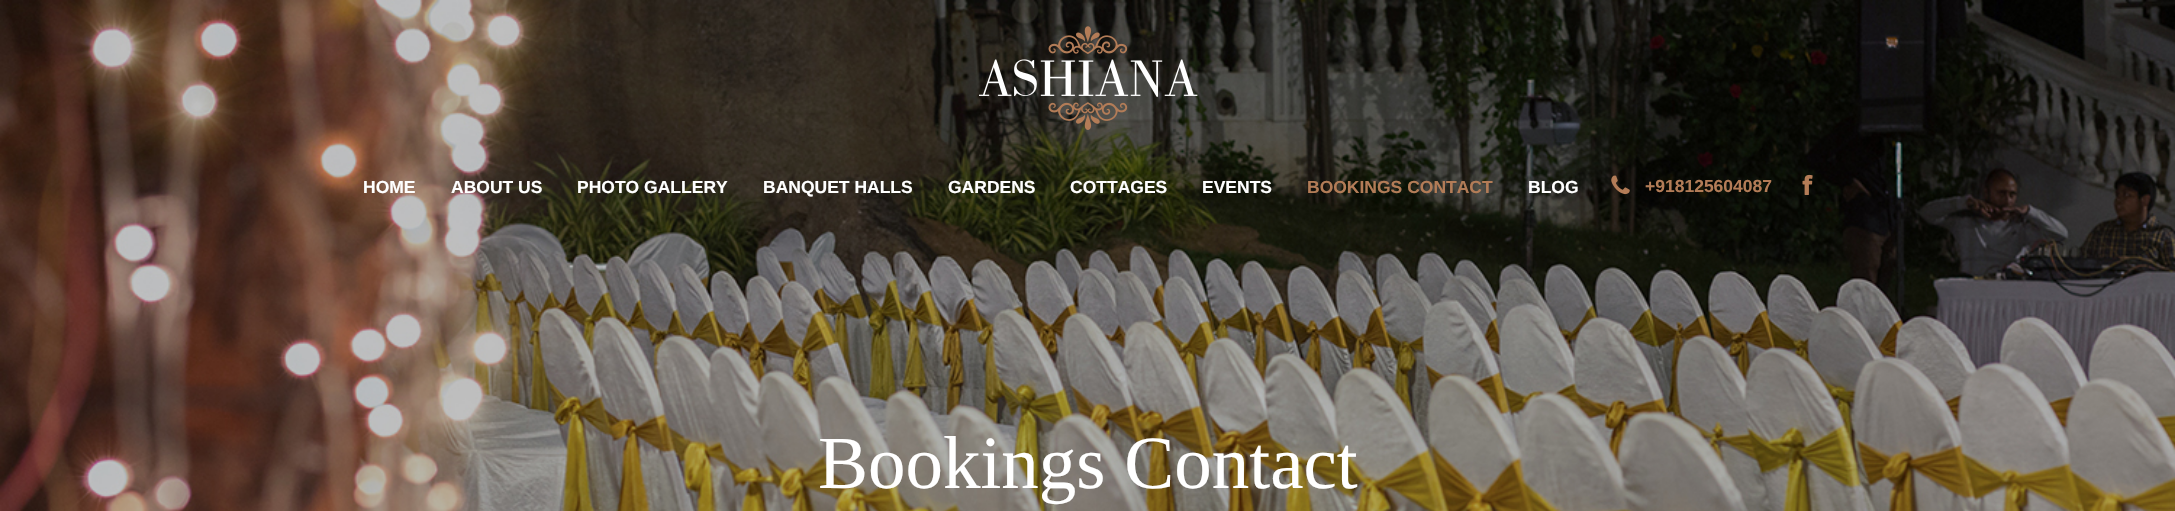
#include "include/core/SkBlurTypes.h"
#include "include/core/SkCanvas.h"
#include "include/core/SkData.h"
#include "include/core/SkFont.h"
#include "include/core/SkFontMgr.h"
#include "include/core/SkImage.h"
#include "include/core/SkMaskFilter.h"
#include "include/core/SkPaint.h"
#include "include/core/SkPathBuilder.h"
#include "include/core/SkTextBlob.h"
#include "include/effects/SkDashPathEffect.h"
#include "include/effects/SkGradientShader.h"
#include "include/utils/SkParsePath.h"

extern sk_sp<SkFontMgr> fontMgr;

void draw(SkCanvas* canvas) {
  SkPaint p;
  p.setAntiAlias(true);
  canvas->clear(SK_ColorWHITE);
  canvas->drawImageRect(SkImages::DeferredFromEncodedData(SkData::MakeFromFileName("images/4.png")), SkRect::MakeLTRB(0, 0, 2175, 511), SkSamplingOptions());
  canvas->drawImageRect(SkImages::DeferredFromEncodedData(SkData::MakeFromFileName("images/1.png")), SkRect::MakeLTRB(979, 26, 1198, 130), SkSamplingOptions());
  canvas->drawImageRect(SkImages::DeferredFromEncodedData(SkData::MakeFromFileName("images/2.png")), SkRect::MakeLTRB(1611, 175, 1630, 195), SkSamplingOptions());
  canvas->drawImageRect(SkImages::DeferredFromEncodedData(SkData::MakeFromFileName("images/3.png")), SkRect::MakeLTRB(1802, 174, 1813, 195), SkSamplingOptions());
  SkFont font1(fontMgr->matchFamilyStyle("Liberation Sans", SkFontStyle::Bold()), 17.5f);
  font1.setSubpixel(true);
  p.setColor(SK_ColorWHITE);
  canvas->drawString("HOME", 363, 193, font1, p);
  canvas->drawString("ABOUT US", 451, 193, font1, p);
  canvas->drawString("PHOTO GALLERY", 577, 193, font1, p);
  canvas->drawString("BANQUET HALLS", 763, 193, font1, p);
  canvas->drawString("GARDENS", 948, 193, font1, p);
  canvas->drawString("COTTAGES", 1070, 193, font1, p);
  canvas->drawString("EVENTS", 1202, 193, font1, p);
  p.setColor(SkColorSetRGB(179, 124, 87));
  canvas->drawString("BOOKINGS CONTACT", 1307, 193, font1, p);
  p.setColor(SK_ColorWHITE);
  canvas->drawString("BLOG", 1528, 193, font1, p);
  p.setColor(SkColorSetRGB(179, 124, 87));
  canvas->drawString("+918125604087", 1645, 192, font1, p);
  SkFont font2(fontMgr->matchFamilyStyle("Liberation Serif", SkFontStyle::Normal()), 75);
  font2.setSubpixel(true);
  p.setColor(SK_ColorWHITE);
  canvas->drawString("Bookings Contact", 818, 488, font2, p);
}
